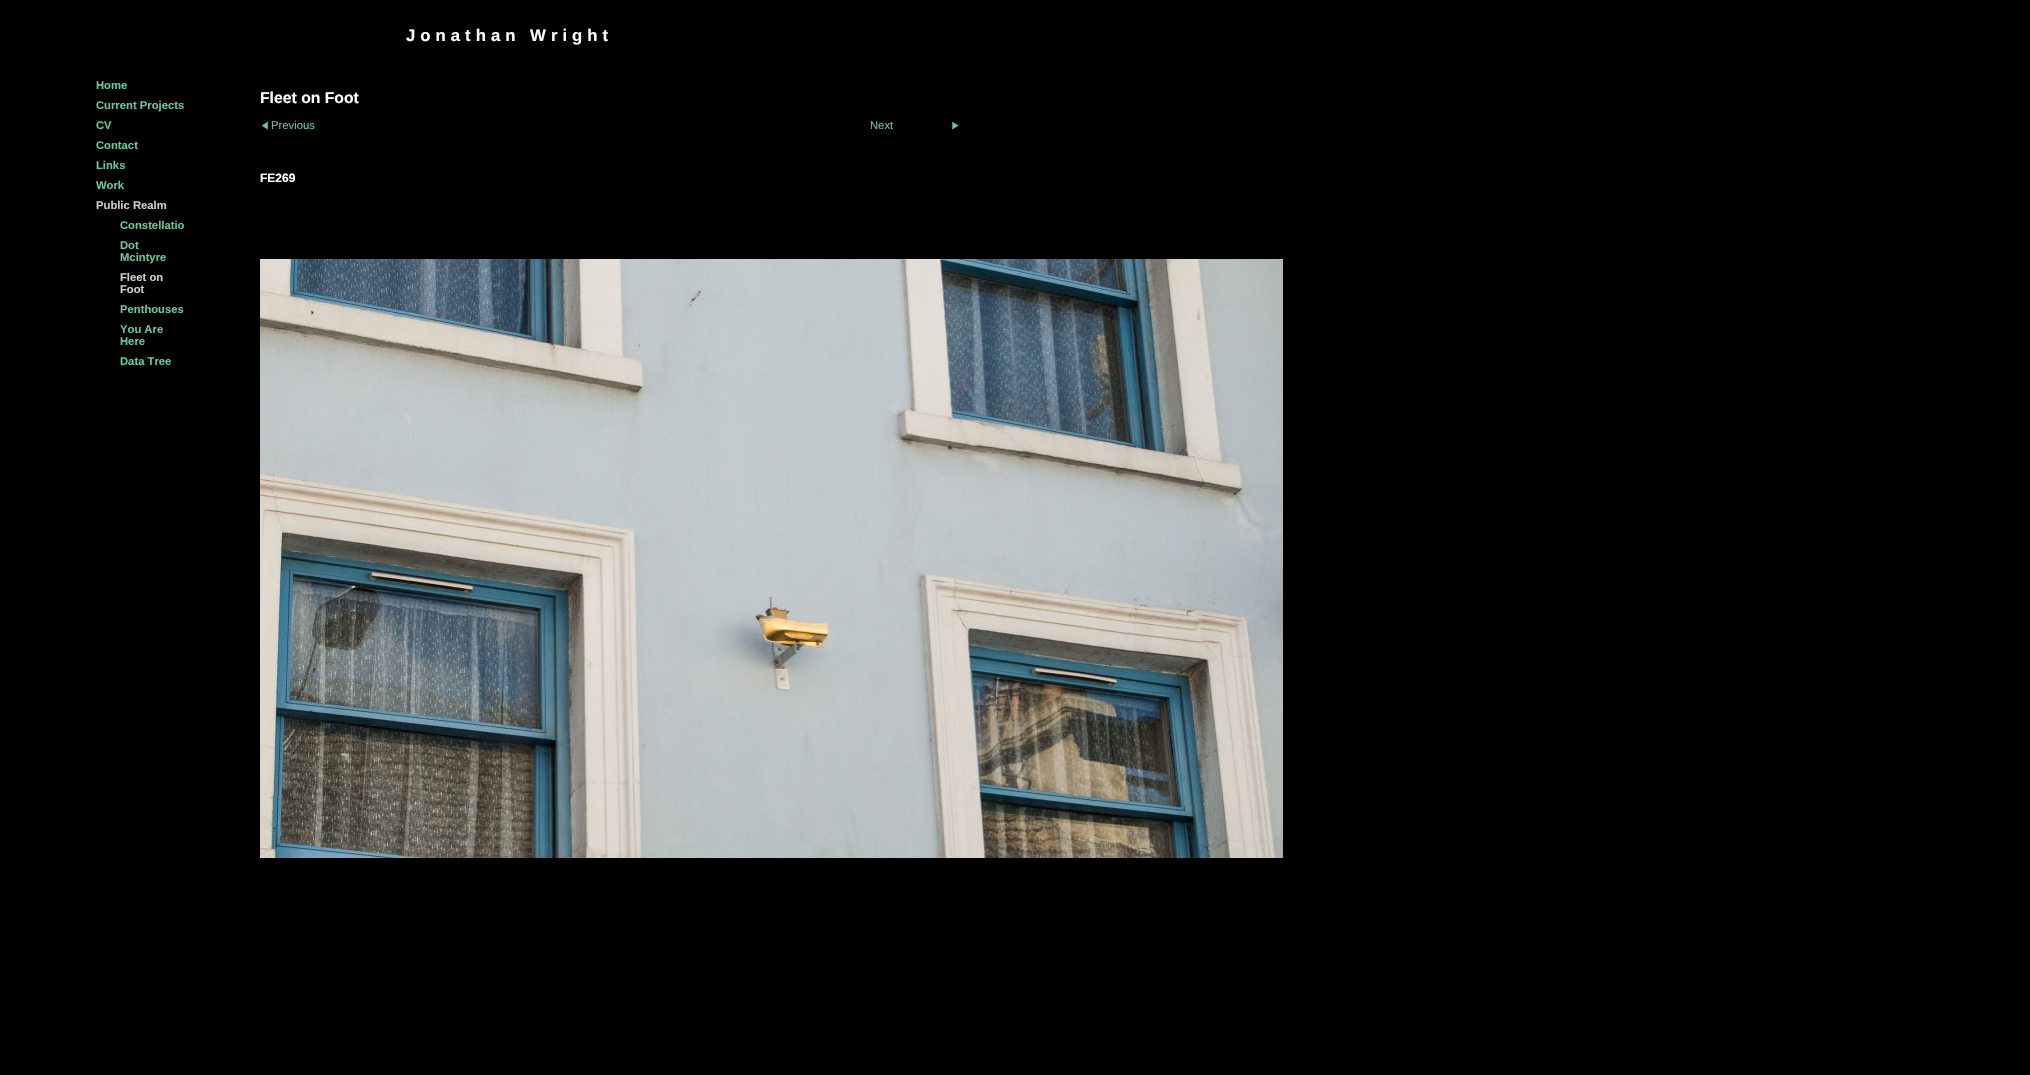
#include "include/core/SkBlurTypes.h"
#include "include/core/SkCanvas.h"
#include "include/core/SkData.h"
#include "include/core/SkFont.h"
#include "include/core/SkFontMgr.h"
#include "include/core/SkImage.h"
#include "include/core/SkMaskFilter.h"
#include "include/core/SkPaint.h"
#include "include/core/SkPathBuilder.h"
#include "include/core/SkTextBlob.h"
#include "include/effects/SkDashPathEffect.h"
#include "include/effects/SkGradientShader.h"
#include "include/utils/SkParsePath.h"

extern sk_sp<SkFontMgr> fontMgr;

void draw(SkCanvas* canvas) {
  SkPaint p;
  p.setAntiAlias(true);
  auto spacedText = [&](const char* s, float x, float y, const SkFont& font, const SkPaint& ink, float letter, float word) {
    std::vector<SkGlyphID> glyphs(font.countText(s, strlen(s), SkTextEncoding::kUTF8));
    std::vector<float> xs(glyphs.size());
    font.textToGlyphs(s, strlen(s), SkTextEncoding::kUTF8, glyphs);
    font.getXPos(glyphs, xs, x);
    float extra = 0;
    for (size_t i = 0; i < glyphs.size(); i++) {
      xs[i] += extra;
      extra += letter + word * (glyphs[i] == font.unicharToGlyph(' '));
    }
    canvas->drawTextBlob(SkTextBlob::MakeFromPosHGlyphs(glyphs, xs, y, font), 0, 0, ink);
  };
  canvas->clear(SK_ColorBLACK);
  canvas->drawImageRect(SkImages::DeferredFromEncodedData(SkData::MakeFromFileName("images/1.png")), SkRect::MakeLTRB(261, 121, 268, 130), SkSamplingOptions());
  canvas->drawImageRect(SkImages::DeferredFromEncodedData(SkData::MakeFromFileName("images/2.png")), SkRect::MakeLTRB(952, 121, 959, 130), SkSamplingOptions());
  canvas->drawImageRect(SkImages::DeferredFromEncodedData(SkData::MakeFromFileName("images/3.png")), SkRect::MakeLTRB(260, 259, 1283, 858), SkSamplingOptions());
  SkFont font1(fontMgr->matchFamilyStyle("Liberation Sans", SkFontStyle::Bold()), 16.75f);
  font1.setSubpixel(true);
  p.setColor(SK_ColorWHITE);
  spacedText("Jonathan Wright", 406, 41, font1, p, 5, 0);
  SkFont font2(fontMgr->matchFamilyStyle("Liberation Sans", SkFontStyle::Bold()), 11.25f);
  font2.setSubpixel(true);
  p.setColor(SkColorSetRGB(105, 198, 156));
  canvas->drawString("Home", 96, 89, font2, p);
  canvas->drawString("Current Projects", 96, 109, font2, p);
  canvas->drawString("CV", 96, 129, font2, p);
  canvas->drawString("Contact", 96, 149, font2, p);
  canvas->drawString("Links", 96, 169, font2, p);
  canvas->drawString("Work", 96, 189, font2, p);
  p.setColor(SkColorSetRGB(204, 204, 204));
  canvas->drawString("Public Realm", 96, 209, font2, p);
  SkFont font3(fontMgr->matchFamilyStyle("Liberation Sans", SkFontStyle::Bold()), 15.75f);
  font3.setSubpixel(true);
  p.setColor(SK_ColorWHITE);
  canvas->drawString("Fleet on Foot", 260, 103, font3, p);
  SkFont font4(fontMgr->matchFamilyStyle("Liberation Sans", SkFontStyle::Normal()), 11.25f);
  font4.setSubpixel(true);
  p.setColor(SkColorSetRGB(105, 198, 156));
  canvas->drawString("Previous", 271, 129, font4, p);
  canvas->drawString("Next", 870, 129, font4, p);
  SkFont font5(fontMgr->matchFamilyStyle("Liberation Sans", SkFontStyle::Bold()), 12);
  font5.setSubpixel(true);
  p.setColor(SK_ColorWHITE);
  canvas->drawString("FE269", 260, 182, font5, p);
  p.setColor(SkColorSetRGB(105, 198, 156));
  canvas->drawString("Constellatio", 120, 229, font2, p);
  canvas->drawString("Dot", 120, 249, font2, p);
  canvas->drawString("Mcintyre", 120, 261, font2, p);
  p.setColor(SkColorSetRGB(204, 204, 204));
  canvas->drawString("Fleet on", 120, 281, font2, p);
  canvas->drawString("Foot", 120, 293, font2, p);
  p.setColor(SkColorSetRGB(105, 198, 156));
  canvas->drawString("Penthouses", 120, 313, font2, p);
  canvas->drawString("You Are", 120, 333, font2, p);
  canvas->drawString("Here", 120, 345, font2, p);
  canvas->drawString("Data Tree", 120, 365, font2, p);
}
